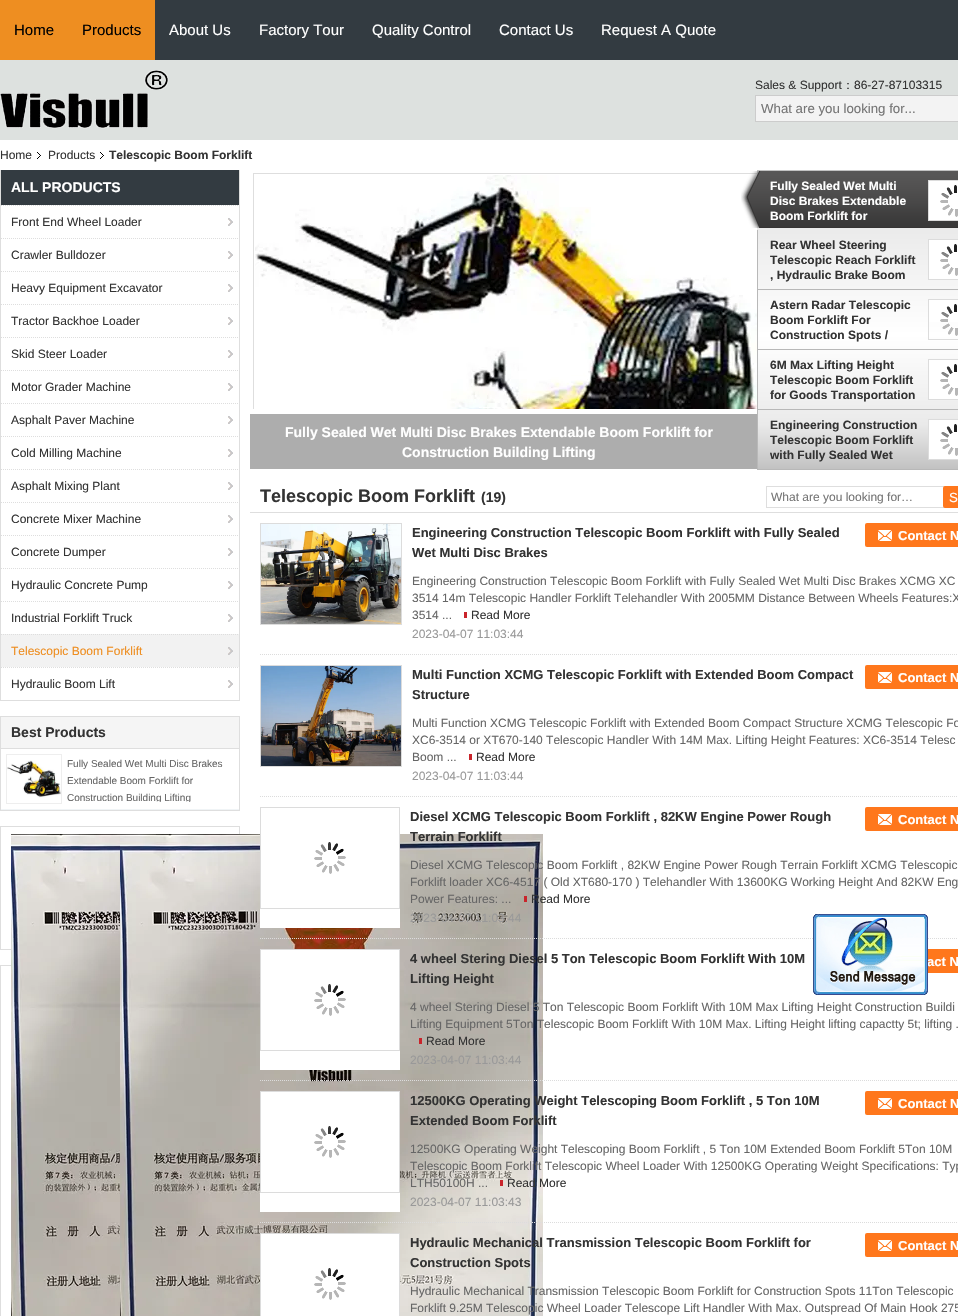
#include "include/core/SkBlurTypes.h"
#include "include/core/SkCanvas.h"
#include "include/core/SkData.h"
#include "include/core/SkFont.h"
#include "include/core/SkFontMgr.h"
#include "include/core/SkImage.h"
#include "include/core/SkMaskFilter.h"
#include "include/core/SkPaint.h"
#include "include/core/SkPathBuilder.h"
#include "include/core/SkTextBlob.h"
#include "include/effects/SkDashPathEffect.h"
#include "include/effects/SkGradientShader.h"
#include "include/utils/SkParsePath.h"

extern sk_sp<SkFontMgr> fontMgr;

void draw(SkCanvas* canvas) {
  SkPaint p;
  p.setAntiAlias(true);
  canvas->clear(SK_ColorWHITE);
  p.setColor(SkColorSetRGB(51, 59, 65));
  canvas->drawRect(SkRect::MakeLTRB(155, 0, 958, 60), p);
  p.setColor(SkColorSetRGB(238, 142, 33));
  canvas->drawRect(SkRect::MakeLTRB(0, 0, 155, 60), p);
  p.setColor(SkColorSetRGB(221, 225, 223));
  canvas->drawRect(SkRect::MakeLTRB(0, 60, 958, 140), p);
  canvas->drawImageRect(SkImages::DeferredFromEncodedData(SkData::MakeFromFileName("images/1.png")), SkRect::MakeLTRB(0, 70, 169, 129), SkSamplingOptions());
  p.setColor(SkColorSetRGB(243, 243, 243));
  canvas->drawRect(SkRect::MakeLTRB(755.5f, 95.5f, 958.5f, 121.5f), p);
  p.setStyle(SkPaint::kStroke_Style);
  p.setStrokeWidth(1);
  p.setColor(SkColorSetRGB(204, 204, 204));
  canvas->drawRect(SkRect::MakeLTRB(755.5f, 95.5f, 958.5f, 121.5f), p);
  canvas->drawImageRect(SkImages::DeferredFromEncodedData(SkData::MakeFromFileName("images/2.png")), SkRect::MakeLTRB(37, 152, 41, 159), SkSamplingOptions());
  canvas->drawImageRect(SkImages::DeferredFromEncodedData(SkData::MakeFromFileName("images/2.png")), SkRect::MakeLTRB(100, 152, 104, 159), SkSamplingOptions());
  p.setStyle(SkPaint::kFill_Style);
  p.setColor(SkColorSetRGB(222, 222, 222));
  canvas->drawRect(SkRect::MakeLTRB(239, 170, 240, 701), p);
  canvas->drawRect(SkRect::MakeLTRB(0, 700, 240, 701), p);
  canvas->drawRect(SkRect::MakeLTRB(0, 170, 1, 701), p);
  p.setColor(SkColorSetRGB(51, 59, 65));
  canvas->drawRect(SkRect::MakeLTRB(1, 170, 239, 205), p);
  canvas->drawImageRect(SkImages::DeferredFromEncodedData(SkData::MakeFromFileName("images/3.png")), SkRect::MakeLTRB(228, 218, 233, 226), SkSamplingOptions());
  p.setStyle(SkPaint::kStroke_Style);
  p.setColor(SkColorSetRGB(222, 222, 222));
  p.setPathEffect(SkDashPathEffect::Make({{1, 1}}, 0));
  canvas->drawPath(SkPathBuilder().moveTo(1, 205.5f).lineTo(239, 205.5f).detach(), p);
  p.setPathEffect(nullptr);
  canvas->drawImageRect(SkImages::DeferredFromEncodedData(SkData::MakeFromFileName("images/3.png")), SkRect::MakeLTRB(228, 251, 233, 259), SkSamplingOptions());
  p.setPathEffect(SkDashPathEffect::Make({{1, 1}}, 0));
  canvas->drawPath(SkPathBuilder().moveTo(1, 238.5f).lineTo(239, 238.5f).detach(), p);
  p.setPathEffect(nullptr);
  canvas->drawImageRect(SkImages::DeferredFromEncodedData(SkData::MakeFromFileName("images/3.png")), SkRect::MakeLTRB(228, 284, 233, 292), SkSamplingOptions());
  p.setPathEffect(SkDashPathEffect::Make({{1, 1}}, 0));
  canvas->drawPath(SkPathBuilder().moveTo(1, 271.5f).lineTo(239, 271.5f).detach(), p);
  p.setPathEffect(nullptr);
  canvas->drawImageRect(SkImages::DeferredFromEncodedData(SkData::MakeFromFileName("images/3.png")), SkRect::MakeLTRB(228, 317, 233, 325), SkSamplingOptions());
  p.setPathEffect(SkDashPathEffect::Make({{1, 1}}, 0));
  canvas->drawPath(SkPathBuilder().moveTo(1, 304.5f).lineTo(239, 304.5f).detach(), p);
  p.setPathEffect(nullptr);
  canvas->drawImageRect(SkImages::DeferredFromEncodedData(SkData::MakeFromFileName("images/3.png")), SkRect::MakeLTRB(228, 350, 233, 358), SkSamplingOptions());
  p.setPathEffect(SkDashPathEffect::Make({{1, 1}}, 0));
  canvas->drawPath(SkPathBuilder().moveTo(1, 337.5f).lineTo(239, 337.5f).detach(), p);
  p.setPathEffect(nullptr);
  canvas->drawImageRect(SkImages::DeferredFromEncodedData(SkData::MakeFromFileName("images/3.png")), SkRect::MakeLTRB(228, 383, 233, 391), SkSamplingOptions());
  p.setPathEffect(SkDashPathEffect::Make({{1, 1}}, 0));
  canvas->drawPath(SkPathBuilder().moveTo(1, 370.5f).lineTo(239, 370.5f).detach(), p);
  p.setPathEffect(nullptr);
  canvas->drawImageRect(SkImages::DeferredFromEncodedData(SkData::MakeFromFileName("images/3.png")), SkRect::MakeLTRB(228, 416, 233, 424), SkSamplingOptions());
  p.setPathEffect(SkDashPathEffect::Make({{1, 1}}, 0));
  canvas->drawPath(SkPathBuilder().moveTo(1, 403.5f).lineTo(239, 403.5f).detach(), p);
  p.setPathEffect(nullptr);
  canvas->drawImageRect(SkImages::DeferredFromEncodedData(SkData::MakeFromFileName("images/3.png")), SkRect::MakeLTRB(228, 449, 233, 457), SkSamplingOptions());
  p.setPathEffect(SkDashPathEffect::Make({{1, 1}}, 0));
  canvas->drawPath(SkPathBuilder().moveTo(1, 436.5f).lineTo(239, 436.5f).detach(), p);
  p.setPathEffect(nullptr);
  canvas->drawImageRect(SkImages::DeferredFromEncodedData(SkData::MakeFromFileName("images/3.png")), SkRect::MakeLTRB(228, 482, 233, 490), SkSamplingOptions());
  p.setPathEffect(SkDashPathEffect::Make({{1, 1}}, 0));
  canvas->drawPath(SkPathBuilder().moveTo(1, 469.5f).lineTo(239, 469.5f).detach(), p);
  p.setPathEffect(nullptr);
  canvas->drawImageRect(SkImages::DeferredFromEncodedData(SkData::MakeFromFileName("images/3.png")), SkRect::MakeLTRB(228, 515, 233, 523), SkSamplingOptions());
  p.setPathEffect(SkDashPathEffect::Make({{1, 1}}, 0));
  canvas->drawPath(SkPathBuilder().moveTo(1, 502.5f).lineTo(239, 502.5f).detach(), p);
  p.setPathEffect(nullptr);
  canvas->drawImageRect(SkImages::DeferredFromEncodedData(SkData::MakeFromFileName("images/3.png")), SkRect::MakeLTRB(228, 548, 233, 556), SkSamplingOptions());
  p.setPathEffect(SkDashPathEffect::Make({{1, 1}}, 0));
  canvas->drawPath(SkPathBuilder().moveTo(1, 535.5f).lineTo(239, 535.5f).detach(), p);
  p.setPathEffect(nullptr);
  canvas->drawImageRect(SkImages::DeferredFromEncodedData(SkData::MakeFromFileName("images/3.png")), SkRect::MakeLTRB(228, 581, 233, 589), SkSamplingOptions());
  p.setPathEffect(SkDashPathEffect::Make({{1, 1}}, 0));
  canvas->drawPath(SkPathBuilder().moveTo(1, 568.5f).lineTo(239, 568.5f).detach(), p);
  p.setPathEffect(nullptr);
  canvas->drawImageRect(SkImages::DeferredFromEncodedData(SkData::MakeFromFileName("images/3.png")), SkRect::MakeLTRB(228, 614, 233, 622), SkSamplingOptions());
  p.setPathEffect(SkDashPathEffect::Make({{1, 1}}, 0));
  canvas->drawPath(SkPathBuilder().moveTo(1, 601.5f).lineTo(239, 601.5f).detach(), p);
  p.setPathEffect(nullptr);
  p.setStyle(SkPaint::kFill_Style);
  p.setColor(SkColorSetRGB(242, 242, 242));
  canvas->drawRect(SkRect::MakeLTRB(1, 634, 239, 667), p);
  canvas->drawImageRect(SkImages::DeferredFromEncodedData(SkData::MakeFromFileName("images/4.png")), SkRect::MakeLTRB(228, 647, 233, 655), SkSamplingOptions());
  p.setStyle(SkPaint::kStroke_Style);
  p.setColor(SkColorSetRGB(222, 222, 222));
  p.setPathEffect(SkDashPathEffect::Make({{1, 1}}, 0));
  canvas->drawPath(SkPathBuilder().moveTo(1, 634.5f).lineTo(239, 634.5f).detach(), p);
  p.setPathEffect(nullptr);
  canvas->drawImageRect(SkImages::DeferredFromEncodedData(SkData::MakeFromFileName("images/3.png")), SkRect::MakeLTRB(228, 680, 233, 688), SkSamplingOptions());
  p.setPathEffect(SkDashPathEffect::Make({{1, 1}}, 0));
  canvas->drawPath(SkPathBuilder().moveTo(1, 667.5f).lineTo(239, 667.5f).detach(), p);
  p.setPathEffect(nullptr);
  canvas->drawRect(SkRect::MakeLTRB(0.5f, 716.5f, 239.5f, 810.5f), p);
  p.setStyle(SkPaint::kFill_Style);
  p.setColor(SkColorSetRGB(245, 245, 245));
  canvas->drawRect(SkRect::MakeLTRB(1, 717, 239, 748), p);
  p.setColor(SkColorSetRGB(222, 222, 222));
  canvas->drawRect(SkRect::MakeLTRB(1, 748, 239, 749), p);
  p.setColor(SkColorSetRGB(240, 244, 246));
  canvas->drawRect(SkRect::MakeLTRB(1, 809, 239, 810), p);
  p.setStyle(SkPaint::kStroke_Style);
  p.setColor(SkColorSetRGB(238, 238, 238));
  canvas->drawRect(SkRect::MakeLTRB(6.5f, 754.5f, 61.5f, 803.5f), p);
  canvas->drawImageRect(SkImages::DeferredFromEncodedData(SkData::MakeFromFileName("images/5.png")), SkRect::MakeLTRB(7, 760, 61, 798), SkSamplingOptions());
  p.setColor(SkColorSetRGB(222, 222, 222));
  canvas->drawRect(SkRect::MakeLTRB(0.5f, 826.5f, 239.5f, 949.5f), p);
  canvas->drawRect(SkRect::MakeLTRB(0.5f, 965.5f, 239.5f, 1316.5f), p);
  canvas->drawImageRect(SkImages::DeferredFromEncodedData(SkData::MakeFromFileName("images/6.png")), SkRect::MakeLTRB(11, 834, 120, 1316), SkSamplingOptions());
  canvas->drawImageRect(SkImages::DeferredFromEncodedData(SkData::MakeFromFileName("images/7.png")), SkRect::MakeLTRB(120, 834, 543, 1316), SkSamplingOptions());
  p.setStyle(SkPaint::kFill_Style);
  {
    const SkColor colors[] = {SkColorSetRGB(208, 208, 208), SkColorSetRGB(232, 232, 232), SK_ColorWHITE, SkColorSetRGB(234, 234, 234), SkColorSetRGB(194, 194, 194)};
    const float stops[] = {0, 0.15f, 0.55f, 0.85f, 1};
    const SkPoint ends[] = {{875, -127}, {875, 171}};
    p.setShader(SkGradientShader::MakeLinear(ends, colors, stops, 5, SkTileMode::kClamp));
    p.setAlpha(255);
  }
  canvas->drawRect(SkRect::MakeLTRB(757, 170, 958, 171), p);
  p.setShader(nullptr);
  p.setColor(SkColorSetRGB(222, 222, 222));
  canvas->drawRect(SkRect::MakeLTRB(250, 512, 958, 513), p);
  p.setStyle(SkPaint::kStroke_Style);
  p.setColor(SkColorSetRGB(220, 220, 220));
  p.setPathEffect(SkDashPathEffect::Make({{1, 1}}, 0));
  canvas->drawPath(SkPathBuilder().moveTo(260, 654.5f).lineTo(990, 654.5f).detach(), p);
  p.setPathEffect(nullptr);
  canvas->drawRect(SkRect::MakeLTRB(260.5f, 523.5f, 401.5f, 624.5f), p);
  canvas->drawImageRect(SkImages::DeferredFromEncodedData(SkData::MakeFromFileName("images/11.png")), SkRect::MakeLTRB(261, 524, 401, 624), SkSamplingOptions());
  p.setStyle(SkPaint::kFill_Style);
  p.setColor(SkColorSetRGB(255, 119, 28));
  canvas->drawRoundRect(SkRect::MakeLTRB(865, 523, 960, 547), 2, 2, p);
  canvas->drawImageRect(SkImages::DeferredFromEncodedData(SkData::MakeFromFileName("images/12.png")), SkRect::MakeLTRB(878, 530, 892, 541), SkSamplingOptions());
  p.setColor(SkColorSetRGB(201, 36, 43));
  canvas->drawRect(SkRect::MakeLTRB(464, 612, 467, 618), p);
  p.setStyle(SkPaint::kStroke_Style);
  p.setColor(SkColorSetRGB(220, 220, 220));
  p.setPathEffect(SkDashPathEffect::Make({{1, 1}}, 0));
  canvas->drawPath(SkPathBuilder().moveTo(260, 796.5f).lineTo(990, 796.5f).detach(), p);
  p.setPathEffect(nullptr);
  canvas->drawRect(SkRect::MakeLTRB(260.5f, 665.5f, 401.5f, 766.5f), p);
  canvas->drawImageRect(SkImages::DeferredFromEncodedData(SkData::MakeFromFileName("images/13.png")), SkRect::MakeLTRB(261, 666, 401, 766), SkSamplingOptions());
  p.setStyle(SkPaint::kFill_Style);
  p.setColor(SkColorSetRGB(255, 119, 28));
  canvas->drawRoundRect(SkRect::MakeLTRB(865, 665, 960, 689), 2, 2, p);
  canvas->drawImageRect(SkImages::DeferredFromEncodedData(SkData::MakeFromFileName("images/12.png")), SkRect::MakeLTRB(878, 672, 892, 683), SkSamplingOptions());
  p.setColor(SkColorSetRGB(201, 36, 43));
  canvas->drawRect(SkRect::MakeLTRB(469, 754, 472, 760), p);
  p.setStyle(SkPaint::kStroke_Style);
  p.setColor(SkColorSetRGB(220, 220, 220));
  p.setPathEffect(SkDashPathEffect::Make({{1, 1}}, 0));
  canvas->drawPath(SkPathBuilder().moveTo(260, 938.5f).lineTo(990, 938.5f).detach(), p);
  p.setPathEffect(nullptr);
  p.setStyle(SkPaint::kFill_Style);
  p.setColor(SK_ColorWHITE);
  canvas->drawRect(SkRect::MakeLTRB(260, 834, 400, 928), p);
  p.setStyle(SkPaint::kStroke_Style);
  p.setColor(SkColorSetRGB(220, 220, 220));
  canvas->drawRect(SkRect::MakeLTRB(260.5f, 807.5f, 399.5f, 908.5f), p);
  canvas->drawImageRect(SkImages::DeferredFromEncodedData(SkData::MakeFromFileName("images/14.png")), SkRect::MakeLTRB(314, 842, 346, 874), SkSamplingOptions());
  p.setStyle(SkPaint::kFill_Style);
  p.setColor(SkColorSetRGB(255, 119, 28));
  canvas->drawRoundRect(SkRect::MakeLTRB(865, 807, 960, 831), 2, 2, p);
  canvas->drawImageRect(SkImages::DeferredFromEncodedData(SkData::MakeFromFileName("images/12.png")), SkRect::MakeLTRB(878, 814, 892, 825), SkSamplingOptions());
  p.setColor(SkColorSetRGB(201, 36, 43));
  canvas->drawRect(SkRect::MakeLTRB(524, 896, 527, 902), p);
  p.setStyle(SkPaint::kStroke_Style);
  p.setColor(SkColorSetRGB(220, 220, 220));
  p.setPathEffect(SkDashPathEffect::Make({{1, 1}}, 0));
  canvas->drawPath(SkPathBuilder().moveTo(260, 1080.5f).lineTo(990, 1080.5f).detach(), p);
  p.setPathEffect(nullptr);
  p.setStyle(SkPaint::kFill_Style);
  p.setColor(SK_ColorWHITE);
  canvas->drawRect(SkRect::MakeLTRB(260, 950, 400, 1070), p);
  p.setStyle(SkPaint::kStroke_Style);
  p.setColor(SkColorSetRGB(220, 220, 220));
  canvas->drawRect(SkRect::MakeLTRB(260.5f, 949.5f, 399.5f, 1050.5f), p);
  canvas->drawImageRect(SkImages::DeferredFromEncodedData(SkData::MakeFromFileName("images/14.png")), SkRect::MakeLTRB(314, 984, 346, 1016), SkSamplingOptions());
  p.setStyle(SkPaint::kFill_Style);
  p.setColor(SkColorSetRGB(255, 119, 28));
  canvas->drawRect(SkRect::MakeLTRB(928, 949, 958, 973), p);
  p.setColor(SkColorSetRGB(201, 36, 43));
  canvas->drawRect(SkRect::MakeLTRB(419, 1038, 422, 1044), p);
  p.setStyle(SkPaint::kStroke_Style);
  p.setColor(SkColorSetRGB(220, 220, 220));
  p.setPathEffect(SkDashPathEffect::Make({{1, 1}}, 0));
  canvas->drawPath(SkPathBuilder().moveTo(260, 1222.5f).lineTo(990, 1222.5f).detach(), p);
  p.setPathEffect(nullptr);
  p.setStyle(SkPaint::kFill_Style);
  p.setColor(SK_ColorWHITE);
  canvas->drawRect(SkRect::MakeLTRB(260, 1092, 400, 1212), p);
  p.setStyle(SkPaint::kStroke_Style);
  p.setColor(SkColorSetRGB(220, 220, 220));
  canvas->drawRect(SkRect::MakeLTRB(260.5f, 1091.5f, 399.5f, 1192.5f), p);
  canvas->drawImageRect(SkImages::DeferredFromEncodedData(SkData::MakeFromFileName("images/14.png")), SkRect::MakeLTRB(314, 1126, 346, 1158), SkSamplingOptions());
  p.setStyle(SkPaint::kFill_Style);
  p.setColor(SkColorSetRGB(255, 119, 28));
  canvas->drawRoundRect(SkRect::MakeLTRB(865, 1091, 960, 1115), 2, 2, p);
  canvas->drawImageRect(SkImages::DeferredFromEncodedData(SkData::MakeFromFileName("images/12.png")), SkRect::MakeLTRB(878, 1098, 892, 1109), SkSamplingOptions());
  p.setColor(SkColorSetRGB(201, 36, 43));
  canvas->drawRect(SkRect::MakeLTRB(500, 1180, 503, 1186), p);
  p.setColor(SK_ColorWHITE);
  canvas->drawRect(SkRect::MakeLTRB(260.5f, 1233.5f, 399.5f, 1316.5f), p);
  p.setStyle(SkPaint::kStroke_Style);
  p.setColor(SkColorSetRGB(220, 220, 220));
  canvas->drawRect(SkRect::MakeLTRB(260.5f, 1233.5f, 399.5f, 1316.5f), p);
  canvas->drawImageRect(SkImages::DeferredFromEncodedData(SkData::MakeFromFileName("images/14.png")), SkRect::MakeLTRB(314, 1268, 346, 1300), SkSamplingOptions());
  p.setStyle(SkPaint::kFill_Style);
  p.setColor(SkColorSetRGB(255, 119, 28));
  canvas->drawRoundRect(SkRect::MakeLTRB(865, 1233, 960, 1257), 2, 2, p);
  canvas->drawImageRect(SkImages::DeferredFromEncodedData(SkData::MakeFromFileName("images/12.png")), SkRect::MakeLTRB(878, 1240, 892, 1251), SkSamplingOptions());
  SkFont font1(fontMgr->matchFamilyStyle("Liberation Sans", SkFontStyle::Normal()), 15);
  font1.setSubpixel(true);
  p.setColor(SK_ColorBLACK);
  canvas->drawString("Home", 14, 35, font1, p);
  canvas->drawString("Products", 82, 35, font1, p);
  p.setColor(SK_ColorWHITE);
  canvas->drawString("About Us", 169, 35, font1, p);
  canvas->drawString("Factory Tour", 259, 35, font1, p);
  canvas->drawString("Quality Control", 372, 35, font1, p);
  canvas->drawString("Contact Us", 499, 35, font1, p);
  canvas->drawString("Request A Quote", 601, 35, font1, p);
  SkFont font2(fontMgr->matchFamilyStyle("Liberation Sans", SkFontStyle::Normal()), 12);
  font2.setSubpixel(true);
  p.setColor(SkColorSetRGB(51, 51, 51));
  canvas->drawString("Sales & Support", 755, 89, font2, p);
  SkFont font3(fontMgr->matchFamilyStyle("WenQuanYi Zen Hei", SkFontStyle(500, SkFontStyle::kNormal_Width, SkFontStyle::kUpright_Slant)), 12);
  font3.setSubpixel(true);
  canvas->drawString("：", 842, 89, font3, p);
  canvas->drawString("86-27-87103315", 854, 89, font2, p);
  SkFont font4(fontMgr->matchFamilyStyle("Liberation Sans", SkFontStyle::Normal()), 13.25f);
  font4.setSubpixel(true);
  p.setColor(SkColorSetRGB(117, 117, 117));
  canvas->drawString("What are you looking for...", 761, 113, font4, p);
  p.setColor(SkColorSetRGB(51, 51, 51));
  canvas->drawString("Home", 0, 159, font2, p);
  canvas->drawString("Products", 48, 159, font2, p);
  SkFont font5(fontMgr->matchFamilyStyle("Liberation Sans", SkFontStyle::Bold()), 12);
  font5.setSubpixel(true);
  canvas->drawString("Telescopic Boom Forklift", 109, 159, font5, p);
  SkFont font6(fontMgr->matchFamilyStyle("Liberation Sans", SkFontStyle::Bold()), 14);
  font6.setSubpixel(true);
  p.setColor(SK_ColorWHITE);
  canvas->drawString("ALL PRODUCTS", 11, 192, font6, p);
  p.setColor(SkColorSetRGB(51, 51, 51));
  canvas->drawString("Front End Wheel Loader", 11, 226, font2, p);
  canvas->drawString("Crawler Bulldozer", 11, 259, font2, p);
  canvas->drawString("Heavy Equipment Excavator", 11, 292, font2, p);
  canvas->drawString("Tractor Backhoe Loader", 11, 325, font2, p);
  canvas->drawString("Skid Steer Loader", 11, 358, font2, p);
  canvas->drawString("Motor Grader Machine", 11, 391, font2, p);
  canvas->drawString("Asphalt Paver Machine", 11, 424, font2, p);
  canvas->drawString("Cold Milling Machine", 11, 457, font2, p);
  canvas->drawString("Asphalt Mixing Plant", 11, 490, font2, p);
  canvas->drawString("Concrete Mixer Machine", 11, 523, font2, p);
  canvas->drawString("Concrete Dumper", 11, 556, font2, p);
  canvas->drawString("Hydraulic Concrete Pump", 11, 589, font2, p);
  canvas->drawString("Industrial Forklift Truck", 11, 622, font2, p);
  p.setColor(SkColorSetRGB(238, 142, 33));
  canvas->drawString("Telescopic Boom Forklift", 11, 655, font2, p);
  p.setColor(SkColorSetRGB(51, 51, 51));
  canvas->drawString("Hydraulic Boom Lift", 11, 688, font2, p);
  canvas->drawString("Best Products", 11, 737, font6, p);
  SkFont font7(fontMgr->matchFamilyStyle("Liberation Sans", SkFontStyle::Normal()), 10);
  font7.setSubpixel(true);
  p.setColor(SkColorSetRGB(102, 102, 102));
  canvas->drawString("Fully Sealed Wet Multi Disc Brakes", 67, 767, font7, p);
  canvas->drawString("Extendable Boom Forklift for", 67, 784, font7, p);
  canvas->save();
  canvas->clipRect(SkRect::MakeLTRB(67, 754, 234, 802));
  canvas->drawString("Construction Building Lifting", 67, 801, font7, p);
  canvas->restore();
  SkFont font8(fontMgr->matchFamilyStyle("Liberation Sans", SkFontStyle::Bold()), 18);
  font8.setSubpixel(true);
  p.setColor(SkColorSetRGB(51, 51, 51));
  canvas->drawString("Telescopic Boom Forklift", 260, 502, font8, p);
  canvas->drawString("(19)", 481, 502, font6, p);
  SkFont font9(fontMgr->matchFamilyStyle("Liberation Sans", SkFontStyle::Bold()), 13);
  font9.setSubpixel(true);
  p.setColor(SK_ColorWHITE);
  canvas->drawString("Contact N", 898, 540, font9, p);
  p.setColor(SkColorSetRGB(102, 102, 102));
  canvas->drawString("Engineering Construction Telescopic Boom Forklift with Fully Sealed Wet Multi Disc Brakes XCMG XC", 412, 585, font2, p);
  canvas->save();
  canvas->clipRect(SkRect::MakeLTRB(250, 170, 820, 409));
  p.setStyle(SkPaint::kStroke_Style);
  p.setColor(SkColorSetRGB(222, 222, 222));
  canvas->drawRect(SkRect::MakeLTRB(253.5f, 173.5f, 816.5f, 576.5f), p);
  canvas->restore();
  p.setStyle(SkPaint::kFill_Style);
  {
    const SkColor colors[] = {SkColorSetRGB(208, 208, 208), SkColorSetRGB(232, 232, 232), SK_ColorWHITE, SkColorSetRGB(234, 234, 234), SkColorSetRGB(194, 194, 194)};
    const float stops[] = {0, 0.15f, 0.55f, 0.85f, 1};
    const SkPoint ends[] = {{875, 171}, {875, 469}};
    p.setShader(SkGradientShader::MakeLinear(ends, colors, stops, 5, SkTileMode::kClamp));
    p.setAlpha(255);
  }
  canvas->drawRect(SkRect::MakeLTRB(757, 171, 958, 469), p);
  p.setShader(nullptr);
  p.setColor(SkColorSetRGB(51, 51, 51));
  canvas->drawString("with Fully Sealed Wet", 770, 459, font5, p);
  canvas->drawString("Telescopic Boom Forklift", 770, 444, font5, p);
  canvas->drawString("Engineering Construction", 770, 429, font5, p);
  p.setColor(SK_ColorWHITE);
  canvas->drawRect(SkRect::MakeLTRB(928.5f, 419.5f, 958.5f, 459.5f), p);
  p.setStyle(SkPaint::kStroke_Style);
  p.setColor(SkColorSetRGB(220, 220, 220));
  canvas->drawRect(SkRect::MakeLTRB(928.5f, 419.5f, 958.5f, 459.5f), p);
  canvas->drawImageRect(SkImages::DeferredFromEncodedData(SkData::MakeFromFileName("images/10.png")), SkRect::MakeLTRB(940, 424, 958, 456), SkSamplingOptions());
  p.setStyle(SkPaint::kFill_Style);
  p.setColor(SkColorSetRGB(184, 184, 184));
  canvas->drawRect(SkRect::MakeLTRB(757, 469, 958, 470), p);
  canvas->drawRect(SkRect::MakeLTRB(757, 410, 758, 470), p);
  p.setColor(SkColorSetRGB(51, 51, 51));
  canvas->drawString("for Goods Transportation", 770, 399, font5, p);
  canvas->drawString("Telescopic Boom Forklift", 770, 384, font5, p);
  canvas->drawString("6M Max Lifting Height", 770, 369, font5, p);
  p.setColor(SK_ColorWHITE);
  canvas->drawRect(SkRect::MakeLTRB(928.5f, 359.5f, 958.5f, 399.5f), p);
  p.setStyle(SkPaint::kStroke_Style);
  p.setColor(SkColorSetRGB(220, 220, 220));
  canvas->drawRect(SkRect::MakeLTRB(928.5f, 359.5f, 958.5f, 399.5f), p);
  canvas->drawImageRect(SkImages::DeferredFromEncodedData(SkData::MakeFromFileName("images/10.png")), SkRect::MakeLTRB(940, 364, 958, 396), SkSamplingOptions());
  p.setStyle(SkPaint::kFill_Style);
  p.setColor(SkColorSetRGB(184, 184, 184));
  canvas->drawRect(SkRect::MakeLTRB(757, 409, 958, 410), p);
  canvas->drawRect(SkRect::MakeLTRB(757, 350, 758, 410), p);
  p.setColor(SkColorSetRGB(51, 51, 51));
  canvas->drawString("Construction Spots /", 770, 339, font5, p);
  canvas->drawString("Boom Forklift For", 770, 324, font5, p);
  canvas->drawString("Astern Radar Telescopic", 770, 309, font5, p);
  p.setColor(SK_ColorWHITE);
  canvas->drawRect(SkRect::MakeLTRB(929, 300, 958, 322), p);
  p.setStyle(SkPaint::kStroke_Style);
  p.setColor(SkColorSetRGB(220, 220, 220));
  canvas->drawRect(SkRect::MakeLTRB(928.5f, 299.5f, 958.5f, 339.5f), p);
  canvas->drawImageRect(SkImages::DeferredFromEncodedData(SkData::MakeFromFileName("images/10.png")), SkRect::MakeLTRB(940, 304, 958, 336), SkSamplingOptions());
  p.setStyle(SkPaint::kFill_Style);
  p.setColor(SkColorSetRGB(184, 184, 184));
  canvas->drawRect(SkRect::MakeLTRB(757, 349, 958, 350), p);
  canvas->drawRect(SkRect::MakeLTRB(757, 290, 758, 350), p);
  p.setColor(SkColorSetRGB(51, 51, 51));
  canvas->drawString(", Hydraulic Brake Boom", 770, 279, font5, p);
  canvas->drawString("Telescopic Reach Forklift", 770, 264, font5, p);
  canvas->drawString("Rear Wheel Steering", 770, 249, font5, p);
  p.setColor(SK_ColorWHITE);
  canvas->drawRect(SkRect::MakeLTRB(928.5f, 239.5f, 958.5f, 279.5f), p);
  p.setStyle(SkPaint::kStroke_Style);
  p.setColor(SkColorSetRGB(220, 220, 220));
  canvas->drawRect(SkRect::MakeLTRB(928.5f, 239.5f, 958.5f, 279.5f), p);
  canvas->drawImageRect(SkImages::DeferredFromEncodedData(SkData::MakeFromFileName("images/10.png")), SkRect::MakeLTRB(940, 244, 958, 276), SkSamplingOptions());
  p.setStyle(SkPaint::kFill_Style);
  p.setColor(SkColorSetRGB(184, 184, 184));
  canvas->drawRect(SkRect::MakeLTRB(757, 289, 958, 290), p);
  canvas->drawRect(SkRect::MakeLTRB(757, 230, 758, 290), p);
  canvas->drawImageRect(SkImages::DeferredFromEncodedData(SkData::MakeFromFileName("images/8.png")), SkRect::MakeLTRB(255, 175, 757, 409), SkSamplingOptions());
  canvas->drawImageRect(SkImages::DeferredFromEncodedData(SkData::MakeFromFileName("images/9.png")), SkRect::MakeLTRB(741, 171, 958, 228), SkSamplingOptions());
  p.setColor(SK_ColorWHITE);
  canvas->drawString("Boom Forklift for", 770, 220, font5, p);
  canvas->drawString("Disc Brakes Extendable", 770, 205, font5, p);
  canvas->drawString("Fully Sealed Wet Multi", 770, 190, font5, p);
  canvas->drawRect(SkRect::MakeLTRB(928.5f, 180.5f, 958.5f, 220.5f), p);
  p.setStyle(SkPaint::kStroke_Style);
  p.setColor(SkColorSetRGB(220, 220, 220));
  canvas->drawRect(SkRect::MakeLTRB(928.5f, 180.5f, 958.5f, 220.5f), p);
  canvas->drawImageRect(SkImages::DeferredFromEncodedData(SkData::MakeFromFileName("images/10.png")), SkRect::MakeLTRB(940, 185, 958, 217), SkSamplingOptions());
  p.setStyle(SkPaint::kFill_Style);
  p.setColor(SkColorSetRGB(51, 51, 51));
  canvas->drawString("Wet Multi Disc Brakes", 412, 557, font9, p);
  canvas->drawString("Engineering Construction Telescopic Boom Forklift with Fully Sealed", 412, 537, font9, p);
  p.setStyle(SkPaint::kStroke_Style);
  p.setColor(SkColorSetRGB(222, 222, 222));
  canvas->drawRect(SkRect::MakeLTRB(766.5f, 486.5f, 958.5f, 507.5f), p);
  p.setStyle(SkPaint::kFill_Style);
  p.setColor(SkColorSetRGB(255, 119, 28));
  canvas->drawRoundRect(SkRect::MakeLTRB(943, 486, 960, 508), 2, 2, p);
  p.setColor(SK_ColorWHITE);
  canvas->drawString("S", 949, 502, font4, p);
  p.setColor(SkColorSetRGB(117, 117, 117));
  canvas->drawString("What are you looking for…", 771, 501, font2, p);
  p.setColor(SkColorSetRGB(173, 173, 173));
  canvas->drawRect(SkRect::MakeLTRB(250, 414, 757, 469), p);
  p.setColor(SK_ColorWHITE);
  canvas->drawString("Construction Building Lifting", 402, 457, font6, p);
  canvas->drawString("Fully Sealed Wet Multi Disc Brakes Extendable Boom Forklift for", 285, 437, font6, p);
  p.setColor(SkColorSetRGB(102, 102, 102));
  canvas->drawString("3514 14m Telescopic Handler Forklift Telehandler With 2005MM Distance Between Wheels Features:X", 412, 602, font2, p);
  canvas->drawString("3514 ...", 412, 619, font2, p);
  p.setColor(SkColorSetRGB(51, 51, 51));
  canvas->drawString("Read More", 471, 619, font2, p);
  p.setColor(SkColorSetRGB(153, 153, 153));
  canvas->drawString("2023-04-07 11:03:44", 412, 638, font2, p);
  p.setColor(SkColorSetRGB(51, 51, 51));
  canvas->drawString("Multi Function XCMG Telescopic Forklift with Extended Boom Compact", 412, 679, font9, p);
  p.setColor(SK_ColorWHITE);
  canvas->drawString("Contact N", 898, 682, font9, p);
  p.setColor(SkColorSetRGB(51, 51, 51));
  canvas->drawString("Structure", 412, 699, font9, p);
  p.setColor(SkColorSetRGB(102, 102, 102));
  canvas->drawString("Multi Function XCMG Telescopic Forklift with Extended Boom Compact Structure XCMG Telescopic Fo", 412, 727, font2, p);
  canvas->drawString("XC6-3514 or XT670-140 Telescopic Handler With 14M Max. Lifting Height Features: XC6-3514 Telesc", 412, 744, font2, p);
  canvas->drawString("Boom ...", 412, 761, font2, p);
  p.setColor(SkColorSetRGB(51, 51, 51));
  canvas->drawString("Read More", 476, 761, font2, p);
  p.setColor(SkColorSetRGB(153, 153, 153));
  canvas->drawString("2023-04-07 11:03:44", 412, 780, font2, p);
  p.setColor(SkColorSetRGB(51, 51, 51));
  canvas->drawString("Diesel XCMG Telescopic Boom Forklift , 82KW Engine Power Rough", 410, 821, font9, p);
  p.setColor(SK_ColorWHITE);
  canvas->drawString("Contact N", 898, 824, font9, p);
  p.setColor(SkColorSetRGB(51, 51, 51));
  canvas->drawString("Terrain Forklift", 410, 841, font9, p);
  p.setColor(SkColorSetRGB(102, 102, 102));
  canvas->drawString("Diesel XCMG Telescopic Boom Forklift , 82KW Engine Power Rough Terrain Forklift XCMG Telescopic", 410, 869, font2, p);
  canvas->drawString("Forklift loader XC6-4517 ( Old XT680-170 ) Telehandler With 13600KG Working Height And 82KW Eng", 410, 886, font2, p);
  canvas->drawString("Power Features: ...", 410, 903, font2, p);
  p.setColor(SkColorSetRGB(51, 51, 51));
  canvas->drawString("Read More", 531, 903, font2, p);
  p.setColor(SkColorSetRGB(153, 153, 153));
  canvas->drawString("2023-04-07 11:03:44", 410, 922, font2, p);
  p.setColor(SkColorSetRGB(51, 51, 51));
  canvas->drawString("4 wheel Stering Diesel 5 Ton Telescopic Boom Forklift With 10M", 410, 963, font9, p);
  p.setColor(SK_ColorWHITE);
  canvas->drawString("act N", 927, 966, font9, p);
  p.setColor(SkColorSetRGB(51, 51, 51));
  canvas->drawString("Lifting Height", 410, 983, font9, p);
  p.setColor(SkColorSetRGB(102, 102, 102));
  canvas->drawString("4 wheel Stering Diesel 5 Ton Telescopic Boom Forklift With 10M Max Lifting Height Construction Buildi", 410, 1011, font2, p);
  canvas->drawString("Lifting Equipment 5Ton Telescopic Boom Forklift With 10M Max. Lifting Height lifting capactty 5t; lifting .", 410, 1028, font2, p);
  p.setColor(SkColorSetRGB(51, 51, 51));
  canvas->drawString("Read More", 426, 1045, font2, p);
  p.setColor(SkColorSetRGB(153, 153, 153));
  canvas->drawString("2023-04-07 11:03:44", 410, 1064, font2, p);
  p.setColor(SkColorSetRGB(51, 51, 51));
  canvas->drawString("12500KG Operating Weight Telescoping Boom Forklift , 5 Ton 10M", 410, 1105, font9, p);
  p.setColor(SK_ColorWHITE);
  canvas->drawString("Contact N", 898, 1108, font9, p);
  p.setColor(SkColorSetRGB(51, 51, 51));
  canvas->drawString("Extended Boom Forklift", 410, 1125, font9, p);
  p.setColor(SkColorSetRGB(102, 102, 102));
  canvas->drawString("12500KG Operating Weight Telescoping Boom Forklift , 5 Ton 10M Extended Boom Forklift 5Ton 10M", 410, 1153, font2, p);
  canvas->drawString("Telescopic Boom Forklift Telescopic Wheel Loader With 12500KG Operating Weight Specifications: Typ", 410, 1170, font2, p);
  canvas->drawString("LTH50100H ...", 410, 1187, font2, p);
  p.setColor(SkColorSetRGB(51, 51, 51));
  canvas->drawString("Read More", 507, 1187, font2, p);
  p.setColor(SkColorSetRGB(153, 153, 153));
  canvas->drawString("2023-04-07 11:03:43", 410, 1206, font2, p);
  p.setColor(SkColorSetRGB(51, 51, 51));
  canvas->drawString("Hydraulic Mechanical Transmission Telescopic Boom Forklift for", 410, 1247, font9, p);
  p.setColor(SK_ColorWHITE);
  canvas->drawString("Contact N", 898, 1250, font9, p);
  p.setColor(SkColorSetRGB(51, 51, 51));
  canvas->drawString("Construction Spots", 410, 1267, font9, p);
  p.setColor(SkColorSetRGB(102, 102, 102));
  canvas->drawString("Hydraulic Mechanical Transmission Telescopic Boom Forklift for Construction Spots 11Ton Telescopic", 410, 1295, font2, p);
  canvas->drawString("Forklift 9.25M Telescopic Wheel Loader Telescope Lift Handler With Max. Outspread Of Main Hook 275", 410, 1312, font2, p);
  canvas->drawImageRect(SkImages::DeferredFromEncodedData(SkData::MakeFromFileName("images/15.png")), SkRect::MakeLTRB(813, 914, 928, 995), SkSamplingOptions());
}
